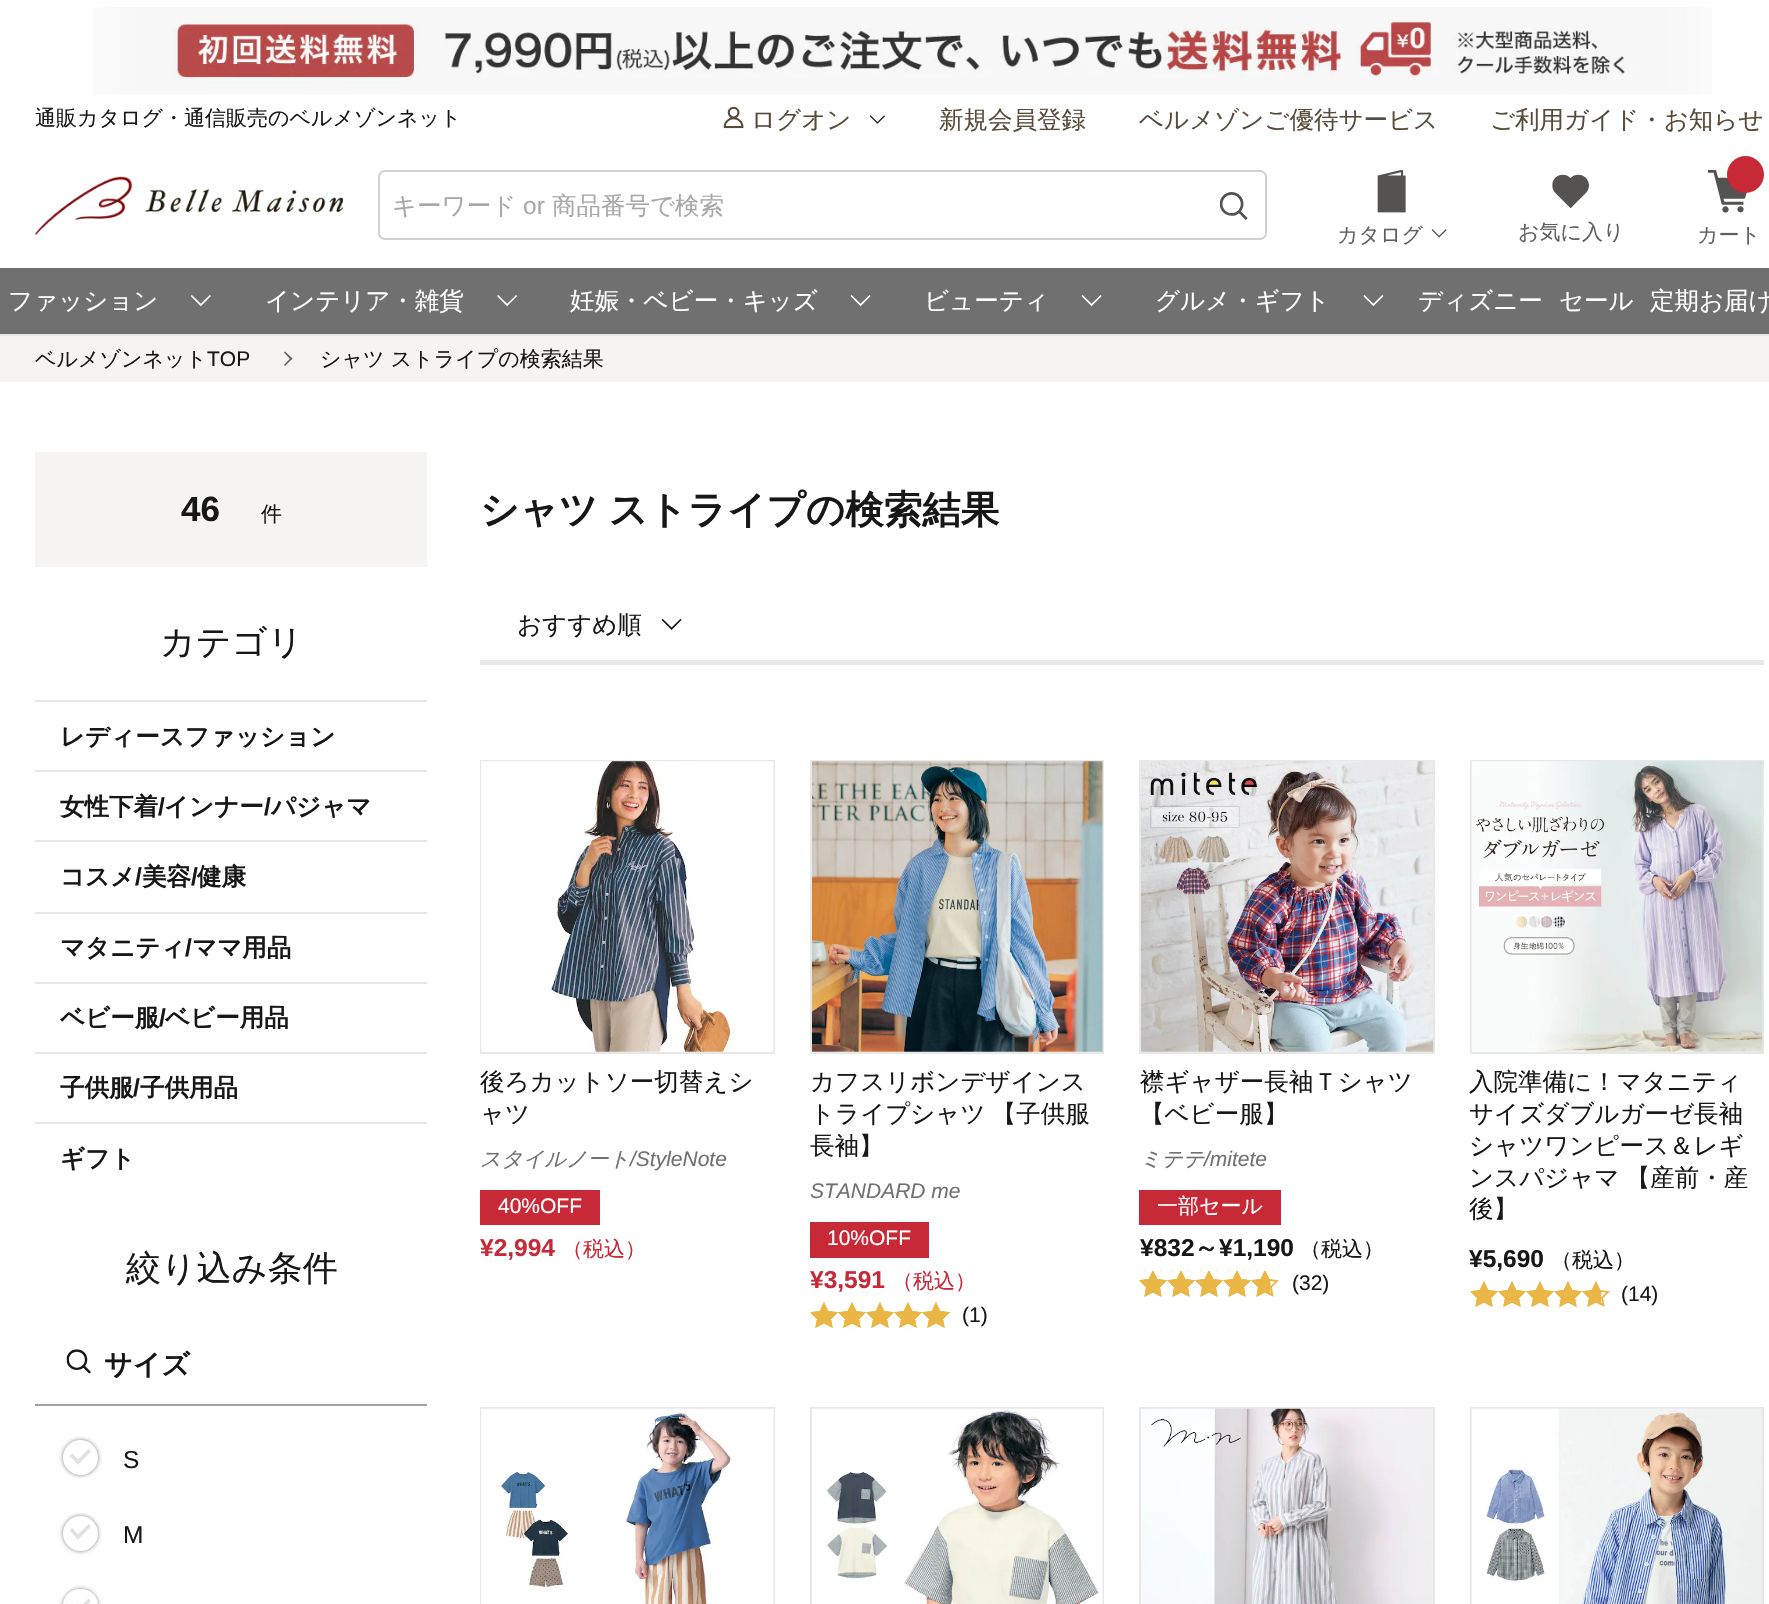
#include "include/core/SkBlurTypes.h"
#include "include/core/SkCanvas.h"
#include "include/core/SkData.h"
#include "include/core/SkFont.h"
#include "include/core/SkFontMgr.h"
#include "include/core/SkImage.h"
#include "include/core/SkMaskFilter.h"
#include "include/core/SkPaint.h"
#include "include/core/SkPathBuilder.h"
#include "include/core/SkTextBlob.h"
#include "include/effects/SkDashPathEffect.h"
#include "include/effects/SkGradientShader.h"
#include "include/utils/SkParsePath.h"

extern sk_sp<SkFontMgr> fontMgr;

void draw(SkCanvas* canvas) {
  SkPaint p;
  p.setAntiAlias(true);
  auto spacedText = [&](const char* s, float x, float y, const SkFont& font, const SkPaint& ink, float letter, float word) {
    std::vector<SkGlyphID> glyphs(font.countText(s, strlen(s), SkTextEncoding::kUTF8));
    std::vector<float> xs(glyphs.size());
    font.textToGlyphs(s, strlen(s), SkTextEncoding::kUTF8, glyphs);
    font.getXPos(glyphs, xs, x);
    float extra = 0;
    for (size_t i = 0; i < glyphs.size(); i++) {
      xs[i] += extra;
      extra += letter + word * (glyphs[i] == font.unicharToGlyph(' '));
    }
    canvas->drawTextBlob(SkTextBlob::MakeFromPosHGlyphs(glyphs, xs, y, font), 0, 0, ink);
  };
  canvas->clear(SK_ColorWHITE);
  p.setColor(SkColorSetRGB(230, 230, 230));
  canvas->drawRect(SkRect::MakeLTRB(0, 334, 1769, 336), p);
  canvas->drawImageRect(SkImages::DeferredFromEncodedData(SkData::MakeFromFileName("images/1.png")), SkRect::MakeLTRB(94, 7, 1712, 95), SkSamplingOptions());
  canvas->drawImageRect(SkImages::DeferredFromEncodedData(SkData::MakeFromFileName("images/2.png")), SkRect::MakeLTRB(723, 106, 744, 129), SkSamplingOptions());
  canvas->drawImageRect(SkImages::DeferredFromEncodedData(SkData::MakeFromFileName("images/3.png")), SkRect::MakeLTRB(870, 115, 885, 124), SkSamplingOptions());
  canvas->drawImageRect(SkImages::DeferredFromEncodedData(SkData::MakeFromFileName("images/4.png")), SkRect::MakeLTRB(35, 176, 343, 235), SkSamplingOptions());
  p.setStyle(SkPaint::kStroke_Style);
  p.setStrokeWidth(2);
  p.setColor(SkColorSetRGB(210, 209, 209));
  canvas->drawRoundRect(SkRect::MakeLTRB(379, 171, 1266, 239), 6, 6, p);
  canvas->drawImageRect(SkImages::DeferredFromEncodedData(SkData::MakeFromFileName("images/5.png")), SkRect::MakeLTRB(1219, 192, 1248, 220), SkSamplingOptions());
  canvas->drawImageRect(SkImages::DeferredFromEncodedData(SkData::MakeFromFileName("images/6.png")), SkRect::MakeLTRB(1377, 169, 1406, 213), SkSamplingOptions());
  canvas->drawImageRect(SkImages::DeferredFromEncodedData(SkData::MakeFromFileName("images/7.png")), SkRect::MakeLTRB(1431, 229, 1447, 238), SkSamplingOptions());
  canvas->drawImageRect(SkImages::DeferredFromEncodedData(SkData::MakeFromFileName("images/8.png")), SkRect::MakeLTRB(1552, 174, 1589, 209), SkSamplingOptions());
  canvas->drawImageRect(SkImages::DeferredFromEncodedData(SkData::MakeFromFileName("images/9.png")), SkRect::MakeLTRB(1708, 169, 1747, 213), SkSamplingOptions());
  p.setStyle(SkPaint::kFill_Style);
  p.setColor(SkColorSetRGB(199, 41, 55));
  canvas->drawCircle(1745.5f, 174.5f, 18.5f, p);
  p.setColor(SkColorSetRGB(112, 112, 112));
  canvas->drawRect(SkRect::MakeLTRB(0, 268, 1769, 334), p);
  canvas->drawImageRect(SkImages::DeferredFromEncodedData(SkData::MakeFromFileName("images/10.png")), SkRect::MakeLTRB(191, 295, 211, 307), SkSamplingOptions());
  canvas->drawImageRect(SkImages::DeferredFromEncodedData(SkData::MakeFromFileName("images/11.png")), SkRect::MakeLTRB(497, 295, 517, 307), SkSamplingOptions());
  canvas->drawImageRect(SkImages::DeferredFromEncodedData(SkData::MakeFromFileName("images/12.png")), SkRect::MakeLTRB(850, 295, 871, 307), SkSamplingOptions());
  canvas->drawImageRect(SkImages::DeferredFromEncodedData(SkData::MakeFromFileName("images/12.png")), SkRect::MakeLTRB(1081, 295, 1102, 307), SkSamplingOptions());
  canvas->drawImageRect(SkImages::DeferredFromEncodedData(SkData::MakeFromFileName("images/13.png")), SkRect::MakeLTRB(1363, 295, 1384, 307), SkSamplingOptions());
  p.setColor(SkColorSetRGB(246, 244, 243));
  canvas->drawRect(SkRect::MakeLTRB(0, 336, 1769, 382), p);
  p.setColor(SkColorSetRGB(97, 94, 94));
  canvas->drawPath(SkPathBuilder().moveTo(284, 352.5f).lineTo(285, 351.5f).lineTo(292.5f, 358.5f).lineTo(291, 360).close().detach(), p);
  canvas->drawPath(SkPathBuilder().moveTo(284, 365).lineTo(291, 357.5f).lineTo(292.5f, 358.5f).lineTo(285, 366).close().detach(), p);
  p.setColor(SkColorSetRGB(246, 244, 243));
  canvas->drawRect(SkRect::MakeLTRB(35, 452, 427, 567), p);
  p.setColor(SkColorSetRGB(232, 232, 232));
  canvas->drawRect(SkRect::MakeLTRB(35, 700, 427, 702), p);
  canvas->drawRect(SkRect::MakeLTRB(35, 770, 427, 772), p);
  canvas->drawRect(SkRect::MakeLTRB(35, 840, 427, 842), p);
  canvas->drawRect(SkRect::MakeLTRB(35, 912, 427, 914), p);
  canvas->drawRect(SkRect::MakeLTRB(35, 982, 427, 984), p);
  canvas->drawRect(SkRect::MakeLTRB(35, 1052, 427, 1054), p);
  canvas->drawRect(SkRect::MakeLTRB(35, 1122, 427, 1124), p);
  p.setColor(SkColorSetRGB(160, 160, 160));
  canvas->drawRect(SkRect::MakeLTRB(35, 1404, 427, 1406), p);
  canvas->drawImageRect(SkImages::DeferredFromEncodedData(SkData::MakeFromFileName("images/14.png")), SkRect::MakeLTRB(66, 1349, 91, 1374), SkSamplingOptions());
  p.setColor(SkColorSetARGB(128, 0, 0, 0));
  p.setMaskFilter(SkMaskFilter::MakeBlur(kNormal_SkBlurStyle, 2));
  canvas->drawRoundRect(SkRect::MakeLTRB(63, 1440, 98, 1475), 17.5f, 17.5f, p);
  p.setMaskFilter(nullptr);
  p.setColor(SK_ColorWHITE);
  canvas->drawCircle(80.5f, 1457.5f, 17.5f, p);
  p.setColor(SkColorSetRGB(227, 225, 224));
  canvas->drawPath(SkPathBuilder().moveTo(88.5f, 1449).lineTo(91, 1451.5f).lineTo(78, 1464.5f).lineTo(75.5f, 1462).close().detach(), p);
  canvas->drawPath(SkPathBuilder().moveTo(72, 1453.5f).lineTo(80.5f, 1462).lineTo(78, 1464.5f).lineTo(69.5f, 1456).close().detach(), p);
  p.setColor(SkColorSetARGB(128, 0, 0, 0));
  p.setMaskFilter(SkMaskFilter::MakeBlur(kNormal_SkBlurStyle, 2));
  canvas->drawRoundRect(SkRect::MakeLTRB(63, 1516, 98, 1551), 17.5f, 17.5f, p);
  p.setMaskFilter(nullptr);
  p.setColor(SK_ColorWHITE);
  canvas->drawCircle(80.5f, 1533.5f, 17.5f, p);
  p.setColor(SkColorSetRGB(227, 225, 224));
  canvas->drawPath(SkPathBuilder().moveTo(88.5f, 1524).lineTo(91, 1526.5f).lineTo(78, 1539.5f).lineTo(75.5f, 1537).close().detach(), p);
  canvas->drawPath(SkPathBuilder().moveTo(72, 1528).lineTo(80.5f, 1537).lineTo(78, 1539.5f).lineTo(69.5f, 1530.5f).close().detach(), p);
  p.setColor(SkColorSetARGB(128, 0, 0, 0));
  p.setMaskFilter(SkMaskFilter::MakeBlur(kNormal_SkBlurStyle, 2));
  canvas->drawRoundRect(SkRect::MakeLTRB(63, 1589, 98, 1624), 17.5f, 17.5f, p);
  p.setMaskFilter(nullptr);
  p.setColor(SK_ColorWHITE);
  canvas->drawRoundRect(SkRect::MakeLTRB(63, 1589, 98, 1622), 17.5f, 17.5f, p);
  p.setColor(SkColorSetRGB(227, 225, 224));
  canvas->drawPath(SkPathBuilder().moveTo(88.5f, 1598.5f).lineTo(91, 1601).lineTo(78, 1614).lineTo(75.5f, 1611.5f).close().moveTo(72, 1603).lineTo(80.5f, 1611.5f).lineTo(78, 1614).lineTo(69.5f, 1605.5f).close().detach(), p);
  canvas->drawImageRect(SkImages::DeferredFromEncodedData(SkData::MakeFromFileName("images/15.png")), SkRect::MakeLTRB(661, 618, 682, 630), SkSamplingOptions());
  p.setColor(SkColorSetRGB(232, 232, 232));
  canvas->drawRect(SkRect::MakeLTRB(480, 660, 1764, 665), p);
  p.setStyle(SkPaint::kStroke_Style);
  canvas->drawRect(SkRect::MakeLTRB(481, 761, 774, 1053), p);
  canvas->drawImageRect(SkImages::DeferredFromEncodedData(SkData::MakeFromFileName("images/16.png")), SkRect::MakeLTRB(481, 761, 774, 1052), SkSamplingOptions());
  p.setStyle(SkPaint::kFill_Style);
  p.setColor(SkColorSetRGB(199, 41, 55));
  canvas->drawRect(SkRect::MakeLTRB(480, 1190, 600, 1225), p);
  p.setStyle(SkPaint::kStroke_Style);
  p.setColor(SkColorSetRGB(232, 232, 232));
  canvas->drawRect(SkRect::MakeLTRB(811, 761, 1103, 1053), p);
  canvas->drawImageRect(SkImages::DeferredFromEncodedData(SkData::MakeFromFileName("images/17.png")), SkRect::MakeLTRB(812, 761, 1103, 1052), SkSamplingOptions());
  p.setStyle(SkPaint::kFill_Style);
  p.setColor(SkColorSetRGB(199, 41, 55));
  canvas->drawRect(SkRect::MakeLTRB(810, 1222, 929, 1258), p);
  canvas->drawImageRect(SkImages::DeferredFromEncodedData(SkData::MakeFromFileName("images/18.png")), SkRect::MakeLTRB(810, 1302, 951, 1329), SkSamplingOptions());
  canvas->drawImageRect(SkImages::DeferredFromEncodedData(SkData::MakeFromFileName("images/19.png")), SkRect::MakeLTRB(810, 1302, 951, 1329), SkSamplingOptions());
  p.setStyle(SkPaint::kStroke_Style);
  p.setColor(SkColorSetRGB(232, 232, 232));
  canvas->drawRect(SkRect::MakeLTRB(1140, 761, 1434, 1053), p);
  canvas->drawImageRect(SkImages::DeferredFromEncodedData(SkData::MakeFromFileName("images/20.png")), SkRect::MakeLTRB(1141, 761, 1434, 1052), SkSamplingOptions());
  p.setStyle(SkPaint::kFill_Style);
  p.setColor(SkColorSetRGB(199, 41, 55));
  canvas->drawRect(SkRect::MakeLTRB(1139, 1190, 1281, 1225), p);
  canvas->drawImageRect(SkImages::DeferredFromEncodedData(SkData::MakeFromFileName("images/21.png")), SkRect::MakeLTRB(1139, 1270, 1280, 1297), SkSamplingOptions());
  canvas->drawImageRect(SkImages::DeferredFromEncodedData(SkData::MakeFromFileName("images/22.png")), SkRect::MakeLTRB(1139, 1270, 1271, 1297), SkSamplingOptions());
  p.setStyle(SkPaint::kStroke_Style);
  p.setColor(SkColorSetRGB(232, 232, 232));
  canvas->drawRect(SkRect::MakeLTRB(1471, 761, 1763, 1053), p);
  canvas->drawImageRect(SkImages::DeferredFromEncodedData(SkData::MakeFromFileName("images/23.png")), SkRect::MakeLTRB(1471, 761, 1763, 1052), SkSamplingOptions());
  canvas->drawImageRect(SkImages::DeferredFromEncodedData(SkData::MakeFromFileName("images/24.png")), SkRect::MakeLTRB(1470, 1281, 1610, 1308), SkSamplingOptions());
  canvas->drawImageRect(SkImages::DeferredFromEncodedData(SkData::MakeFromFileName("images/25.png")), SkRect::MakeLTRB(1470, 1281, 1602, 1308), SkSamplingOptions());
  canvas->drawRect(SkRect::MakeLTRB(481, 1408, 774, 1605), p);
  canvas->drawImageRect(SkImages::DeferredFromEncodedData(SkData::MakeFromFileName("images/26.png")), SkRect::MakeLTRB(481, 1408, 774, 1604), SkSamplingOptions());
  canvas->drawRect(SkRect::MakeLTRB(811, 1408, 1103, 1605), p);
  canvas->drawImageRect(SkImages::DeferredFromEncodedData(SkData::MakeFromFileName("images/27.png")), SkRect::MakeLTRB(812, 1408, 1103, 1604), SkSamplingOptions());
  canvas->drawRect(SkRect::MakeLTRB(1140, 1408, 1434, 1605), p);
  canvas->drawImageRect(SkImages::DeferredFromEncodedData(SkData::MakeFromFileName("images/28.png")), SkRect::MakeLTRB(1141, 1408, 1433, 1604), SkSamplingOptions());
  canvas->drawRect(SkRect::MakeLTRB(1471, 1408, 1763, 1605), p);
  canvas->drawImageRect(SkImages::DeferredFromEncodedData(SkData::MakeFromFileName("images/29.png")), SkRect::MakeLTRB(1471, 1408, 1762, 1604), SkSamplingOptions());
  SkFont font1(fontMgr->matchFamilyStyle("WenQuanYi Zen Hei", SkFontStyle(500, SkFontStyle::kNormal_Width, SkFontStyle::kUpright_Slant)), 21);
  font1.setSubpixel(true);
  p.setStyle(SkPaint::kFill_Style);
  p.setColor(SkColorSetRGB(23, 23, 23));
  canvas->drawString("通販カタログ・通信販売のベルメゾンネット", 35, 125, font1, p);
  SkFont font2(fontMgr->matchFamilyStyle("WenQuanYi Zen Hei", SkFontStyle(500, SkFontStyle::kNormal_Width, SkFontStyle::kUpright_Slant)), 24.5f);
  font2.setSubpixel(true);
  p.setColor(SkColorSetRGB(87, 74, 58));
  canvas->drawString("ログオン", 751, 128, font2, p);
  canvas->drawString("新規会員登録", 939, 128, font2, p);
  canvas->drawString("ベルメゾンご優待サービス", 1139, 128, font2, p);
  canvas->drawString("ご利用ガイド・お知らせ", 1490, 128, font2, p);
  p.setColor(SkColorSetRGB(169, 168, 168));
  canvas->drawString("キーワード", 392, 214, font2, p);
  SkFont font3(fontMgr->matchFamilyStyle("Liberation Sans", SkFontStyle::Normal()), 24.5f);
  font3.setSubpixel(true);
  canvas->drawString("or", 523, 214, font3, p);
  canvas->drawString("商品番号で検索", 552, 214, font2, p);
  p.setColor(SkColorSetRGB(97, 94, 94));
  canvas->drawString("カタログ", 1337, 242, font1, p);
  canvas->drawString("お気に入り", 1518, 239, font1, p);
  canvas->drawString("カート", 1697, 242, font1, p);
  p.setColor(SK_ColorWHITE);
  canvas->drawString("ファッション", 8, 309, font2, p);
  canvas->drawString("インテリア・雑貨", 265, 309, font2, p);
  canvas->drawString("妊娠・ベビー・キッズ", 570, 309, font2, p);
  canvas->drawString("ビューティ", 924, 309, font2, p);
  canvas->drawString("グルメ・ギフト", 1155, 309, font2, p);
  canvas->drawString("ディズニー", 1418, 309, font2, p);
  canvas->drawString("セール", 1559, 309, font2, p);
  canvas->drawString("定期お届け", 1650, 309, font2, p);
  p.setColor(SkColorSetRGB(23, 23, 23));
  canvas->drawString("ベルメゾンネット", 35, 366, font1, p);
  SkFont font4(fontMgr->matchFamilyStyle("Liberation Sans", SkFontStyle::Normal()), 21);
  font4.setSubpixel(true);
  canvas->drawString("TOP", 207, 366, font4, p);
  canvas->drawString("シャツ ストライプの検索結果", 320, 366, font1, p);
  SkFont font5(fontMgr->matchFamilyStyle("Liberation Sans", SkFontStyle::Bold()), 35);
  font5.setSubpixel(true);
  canvas->drawString("46", 181, 521, font5, p);
  canvas->drawString("件", 261, 521, font1, p);
  SkFont font6(fontMgr->matchFamilyStyle("WenQuanYi Zen Hei", SkFontStyle(500, SkFontStyle::kNormal_Width, SkFontStyle::kUpright_Slant)), 35);
  font6.setSubpixel(true);
  canvas->drawString("カテゴリ", 160, 654, font6, p);
  SkFont font7(fontMgr->matchFamilyStyle("WenQuanYi Zen Hei", SkFontStyle::Bold()), 24.5f);
  font7.setSubpixel(true);
  canvas->drawString("レディースファッション", 60, 745, font7, p);
  canvas->drawString("女性下着", 60, 815, font7, p);
  SkFont font8(fontMgr->matchFamilyStyle("Liberation Sans", SkFontStyle::Bold()), 24.5f);
  font8.setSubpixel(true);
  canvas->drawString("/", 158, 815, font8, p);
  canvas->drawString("インナー", 164, 815, font7, p);
  canvas->drawString("/", 264, 815, font8, p);
  canvas->drawString("パジャマ", 271, 815, font7, p);
  canvas->drawString("コスメ", 60, 885, font7, p);
  canvas->drawString("/", 135, 885, font8, p);
  canvas->drawString("美容", 142, 885, font7, p);
  canvas->drawString("/", 191, 885, font8, p);
  canvas->drawString("健康", 197, 885, font7, p);
  canvas->drawString("マタニティ", 60, 956, font7, p);
  canvas->drawString("/", 185, 956, font8, p);
  canvas->drawString("ママ用品", 192, 956, font7, p);
  canvas->drawString("ベビー服", 60, 1026, font7, p);
  canvas->drawString("/", 159, 1026, font8, p);
  canvas->drawString("ベビー用品", 165, 1026, font7, p);
  canvas->drawString("子供服", 60, 1096, font7, p);
  canvas->drawString("/", 133, 1096, font8, p);
  canvas->drawString("子供用品", 140, 1096, font7, p);
  canvas->drawString("ギフト", 60, 1167, font7, p);
  canvas->drawString("絞り込み条件", 126, 1280, font6, p);
  SkFont font9(fontMgr->matchFamilyStyle("WenQuanYi Zen Hei", SkFontStyle::Bold()), 28);
  font9.setSubpixel(true);
  canvas->drawString("サイズ", 104, 1374, font9, p);
  canvas->drawString("S", 123, 1468, font3, p);
  canvas->drawString("M", 123, 1543, font3, p);
  SkFont font10(fontMgr->matchFamilyStyle("WenQuanYi Zen Hei", SkFontStyle::Bold()), 38.5f);
  font10.setSubpixel(true);
  spacedText("シャツ ストライプの検索結果", 480, 523, font10, p, 0, -1);
  canvas->drawString("おすすめ順", 517, 633, font2, p);
  canvas->drawString("後ろカットソー切替えシ", 480, 1090, font2, p);
  canvas->drawString("ャツ", 480, 1122, font2, p);
  SkFont font11(fontMgr->matchFamilyStyle("WenQuanYi Zen Hei", SkFontStyle(500, SkFontStyle::kNormal_Width, SkFontStyle::kItalic_Slant)), 21);
  font11.setSubpixel(true);
  p.setColor(SkColorSetRGB(112, 112, 112));
  canvas->drawString("スタイルノート", 480, 1166, font11, p);
  SkFont font12(fontMgr->matchFamilyStyle("Liberation Sans", SkFontStyle::Italic()), 21);
  font12.setSubpixel(true);
  canvas->drawString("/StyleNote", 630, 1166, font12, p);
  p.setColor(SK_ColorWHITE);
  canvas->drawString("40%OFF", 498, 1213, font4, p);
  p.setColor(SkColorSetRGB(199, 41, 55));
  canvas->drawString("¥2,994", 480, 1256, font8, p);
  canvas->drawString("（税込）", 562, 1256, font1, p);
  p.setColor(SkColorSetRGB(23, 23, 23));
  canvas->drawString("カフスリボンデザインス", 810, 1090, font2, p);
  spacedText("トライプシャツ 【子供服", 810, 1122, font2, p, 0, -1);
  canvas->drawString("長袖】", 810, 1154, font2, p);
  p.setColor(SkColorSetRGB(112, 112, 112));
  canvas->drawString("STANDARD me", 810, 1198, font12, p);
  p.setColor(SK_ColorWHITE);
  canvas->drawString("10%OFF", 827, 1245, font4, p);
  p.setColor(SkColorSetRGB(199, 41, 55));
  canvas->drawString("¥3,591", 810, 1288, font8, p);
  canvas->drawString("（税込）", 892, 1288, font1, p);
  p.setColor(SkColorSetRGB(23, 23, 23));
  canvas->drawString("(1)", 962, 1322, font4, p);
  canvas->drawString("襟ギャザー長袖Ｔシャツ", 1140, 1090, font2, p);
  canvas->drawString("【ベビー服】", 1140, 1122, font2, p);
  p.setColor(SkColorSetRGB(112, 112, 112));
  canvas->drawString("ミテテ", 1140, 1166, font11, p);
  canvas->drawString("/mitete", 1204, 1166, font12, p);
  p.setColor(SK_ColorWHITE);
  canvas->drawString("一部セール", 1157, 1213, font1, p);
  p.setColor(SkColorSetRGB(23, 23, 23));
  canvas->drawString("¥832", 1140, 1256, font8, p);
  canvas->drawString("～", 1194, 1256, font7, p);
  canvas->drawString("¥1,190", 1219, 1256, font8, p);
  canvas->drawString("（税込）", 1300, 1256, font1, p);
  canvas->drawString("(32)", 1292, 1290, font4, p);
  canvas->drawString("入院準備に！マタニティ", 1469, 1090, font2, p);
  canvas->drawString("サイズダブルガーゼ長袖", 1469, 1122, font2, p);
  canvas->drawString("シャツワンピース＆レギ", 1469, 1154, font2, p);
  spacedText("ンスパジャマ 【産前・産", 1469, 1186, font2, p, 0, -1);
  canvas->drawString("後】", 1469, 1217, font2, p);
  canvas->drawString("¥5,690", 1469, 1267, font8, p);
  canvas->drawString("（税込）", 1551, 1267, font1, p);
  canvas->drawString("(14)", 1621, 1301, font4, p);
}
